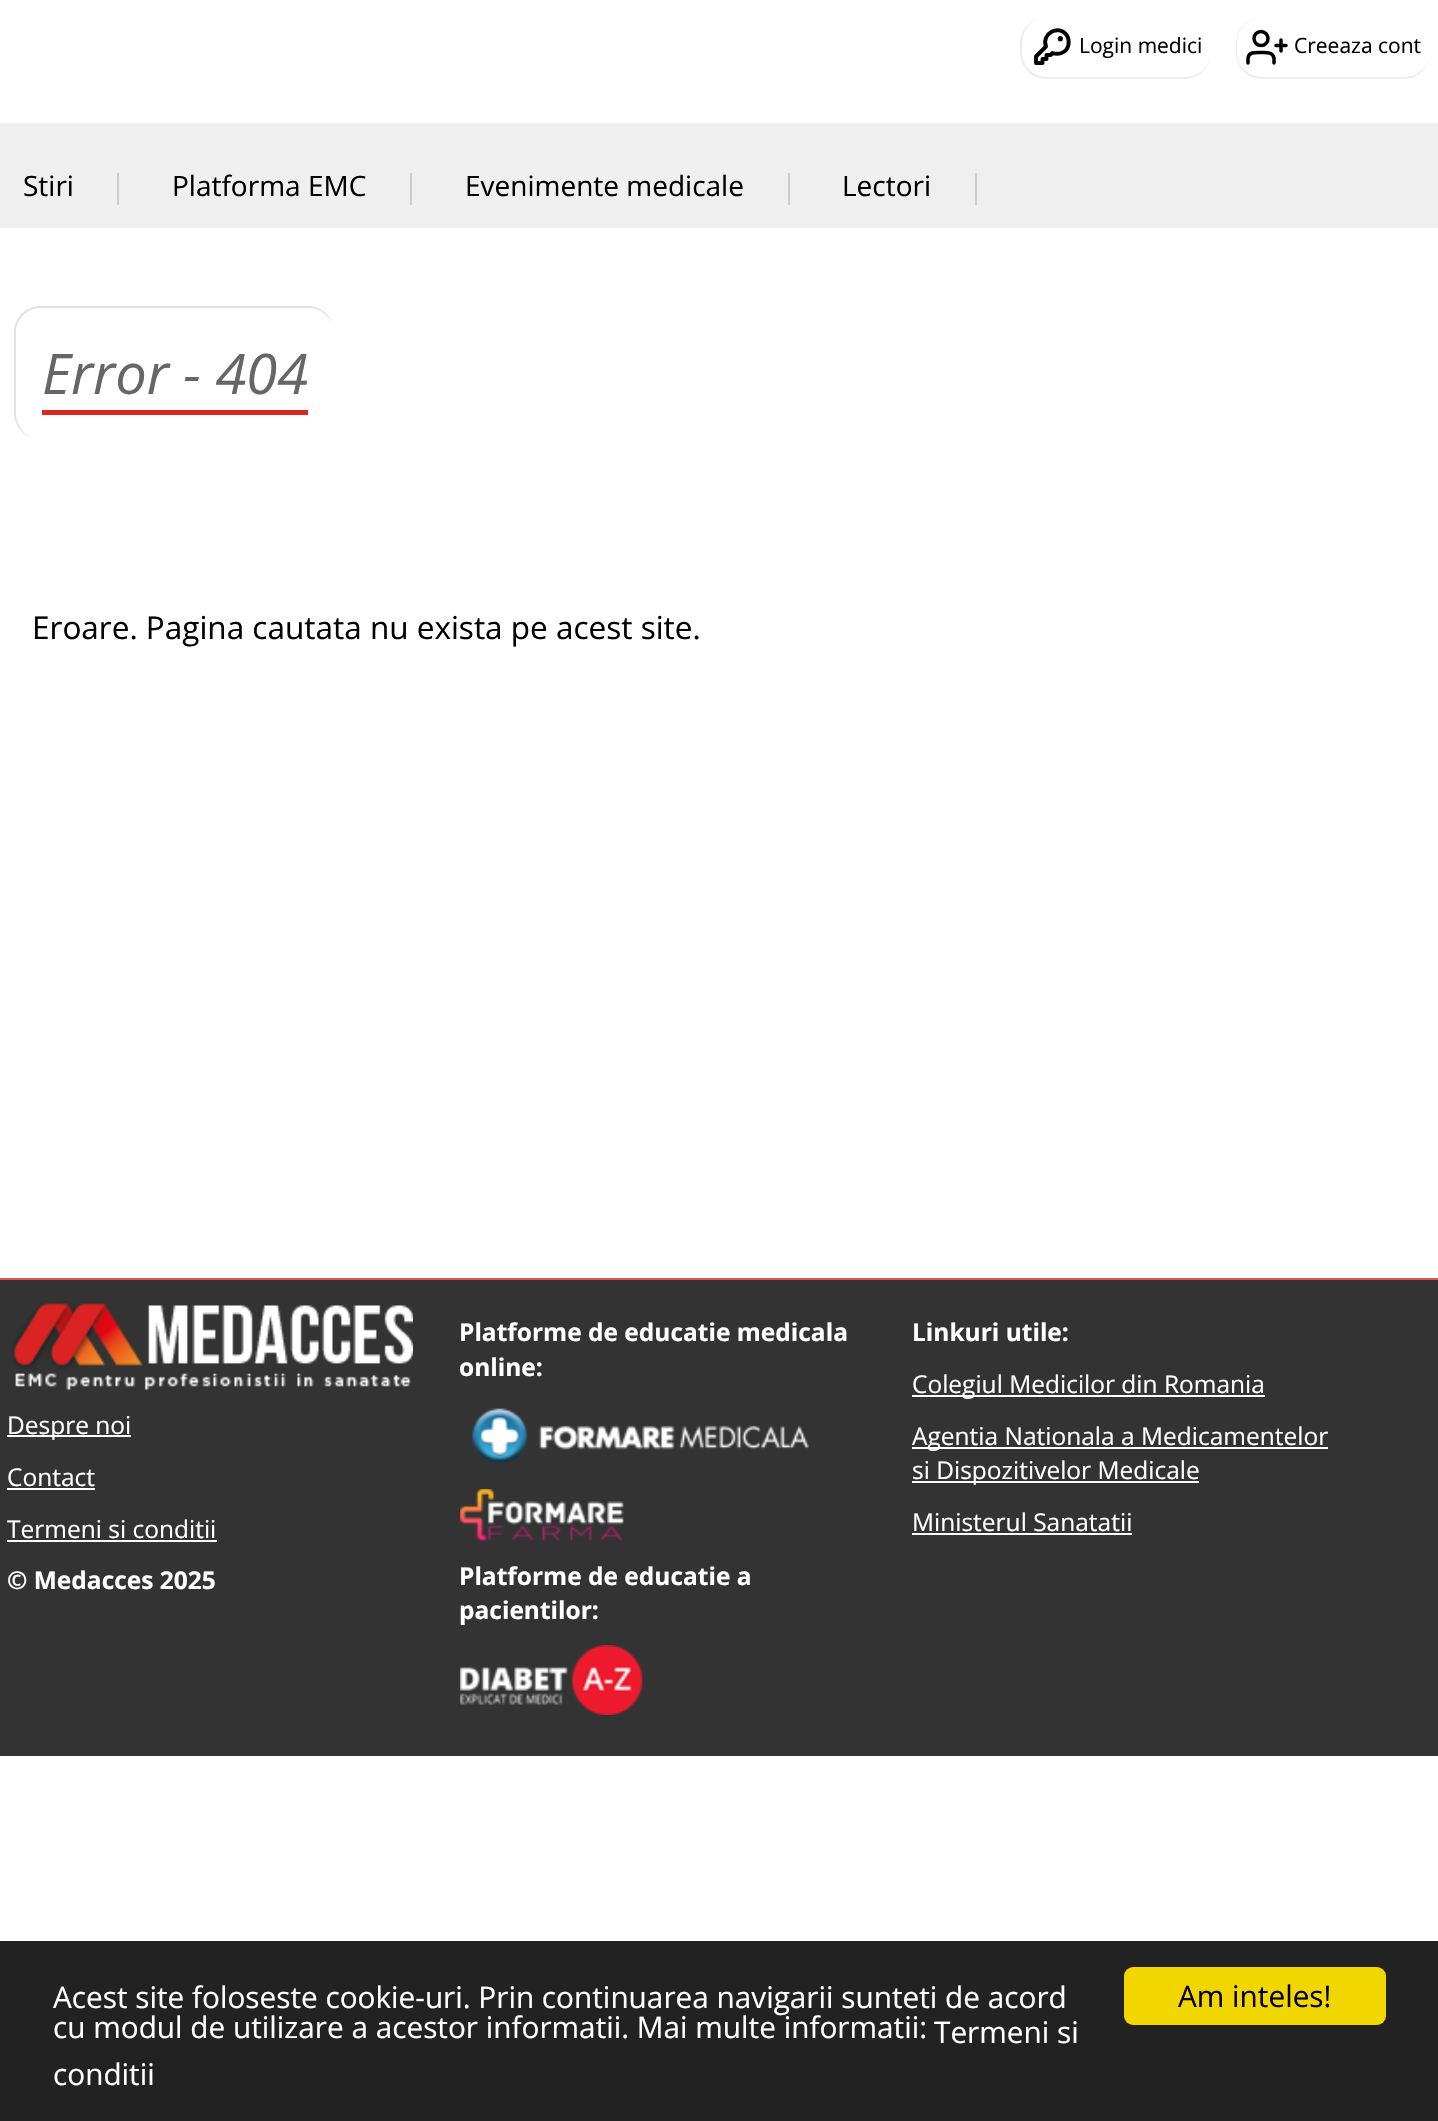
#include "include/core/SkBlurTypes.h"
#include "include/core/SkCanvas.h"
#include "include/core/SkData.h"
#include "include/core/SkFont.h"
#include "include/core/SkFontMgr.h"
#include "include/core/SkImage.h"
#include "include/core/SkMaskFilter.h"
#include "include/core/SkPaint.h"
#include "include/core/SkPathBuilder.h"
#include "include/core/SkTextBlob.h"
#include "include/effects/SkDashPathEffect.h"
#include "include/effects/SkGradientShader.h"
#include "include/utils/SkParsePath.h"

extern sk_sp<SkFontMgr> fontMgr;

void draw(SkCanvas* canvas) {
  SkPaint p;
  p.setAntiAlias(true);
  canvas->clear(SK_ColorWHITE);
  p.setColor(SkColorSetRGB(236, 236, 236));
  canvas->drawPath(SkPathBuilder(SkPathFillType::kEvenOdd).moveTo(1046, 18).lineTo(1185, 18).cubicTo(1199, 18, 1211, 29, 1211, 44).lineTo(1211, 52).cubicTo(1211, 67, 1199, 79, 1185, 79).lineTo(1046, 79).cubicTo(1032, 79, 1020, 67, 1020, 52).lineTo(1020, 44).cubicTo(1020, 29, 1032, 18, 1046, 18).close().moveTo(1046, 18).lineTo(1185, 18).cubicTo(1199, 18, 1211, 29, 1211, 44).lineTo(1211, 52).cubicTo(1211, 66, 1199, 77, 1185, 77).lineTo(1046, 77).cubicTo(1033, 77, 1022, 66, 1022, 52).lineTo(1022, 44).cubicTo(1022, 29, 1033, 18, 1046, 18).close().detach(), p);
  p.setStyle(SkPaint::kStroke_Style);
  p.setStrokeWidth(3.9f);
  p.setStrokeCap(SkPaint::kRound_Cap);
  p.setStrokeJoin(SkPaint::kRound_Join);
  p.setColor(SK_ColorBLACK);
  canvas->drawPath(SkPathBuilder().moveTo(1046, 46.5f).cubicTo(1041, 34, 1059, 23.5f, 1067, 35.5f).cubicTo(1068.5f, 38, 1069, 41.5f, 1068.5f, 44.5f).cubicTo(1068, 48, 1065, 51.5f, 1061.5f, 53).cubicTo(1058.5f, 54, 1055.5f, 54, 1052.5f, 53).lineTo(1050.5f, 55).lineTo(1046.5f, 55).lineTo(1046.5f, 59).lineTo(1042.5f, 59).lineTo(1042.5f, 63).lineTo(1036, 63).lineTo(1036, 56.5f).close().detach(), p);
  p.setStyle(SkPaint::kFill_Style);
  canvas->drawCircle(1060.3f, 38.7f, 2.6f, p);
  p.setColor(SkColorSetRGB(236, 236, 236));
  canvas->drawPath(SkPathBuilder(SkPathFillType::kEvenOdd).moveTo(1262, 18).lineTo(1404, 18).cubicTo(1418, 18, 1430, 29, 1430, 44).lineTo(1430, 52).cubicTo(1430, 67, 1418, 79, 1404, 79).lineTo(1262, 79).cubicTo(1247, 79, 1236, 67, 1236, 52).lineTo(1236, 44).cubicTo(1236, 29, 1247, 18, 1262, 18).close().moveTo(1262, 18).lineTo(1404, 18).cubicTo(1418, 18, 1430, 29, 1430, 44).lineTo(1430, 52).cubicTo(1430, 66, 1418, 77, 1404, 77).lineTo(1262, 77).cubicTo(1248, 77, 1237, 66, 1237, 52).lineTo(1237, 44).cubicTo(1237, 29, 1248, 18, 1262, 18).close().detach(), p);
  p.setStyle(SkPaint::kStroke_Style);
  p.setStrokeWidth(3.5f);
  p.setStrokeCap(SkPaint::kButt_Cap);
  p.setStrokeJoin(SkPaint::kMiter_Join);
  p.setColor(SK_ColorBLACK);
  canvas->drawCircle(1261, 38.5f, 7, p);
  p.setStrokeCap(SkPaint::kRound_Cap);
  p.setStrokeJoin(SkPaint::kRound_Join);
  canvas->drawPath(SkPathBuilder().moveTo(1274, 63).lineTo(1274, 58).cubicTo(1272.5f, 51.5f, 1266, 52.5f, 1261, 52.5f).cubicTo(1256, 52.5f, 1249, 51.5f, 1248, 58).lineTo(1248, 63).detach(), p);
  canvas->drawPath(SkPathBuilder().moveTo(1281, 40).lineTo(1281, 51).moveTo(1286, 45.5f).lineTo(1276, 45.5f).detach(), p);
  p.setStyle(SkPaint::kFill_Style);
  p.setColor(SkColorSetRGB(239, 239, 239));
  canvas->drawRect(SkRect::MakeLTRB(0, 123, 1438, 228), p);
  p.setColor(SkColorSetRGB(204, 204, 204));
  canvas->drawRect(SkRect::MakeLTRB(117, 173, 119, 205), p);
  canvas->drawRect(SkRect::MakeLTRB(410, 173, 412, 205), p);
  canvas->drawRect(SkRect::MakeLTRB(788, 173, 790, 205), p);
  canvas->drawRect(SkRect::MakeLTRB(975, 173, 977, 205), p);
  p.setColor(SkColorSetRGB(225, 225, 225));
  canvas->drawPath(SkPathBuilder(SkPathFillType::kEvenOdd).moveTo(40, 306).lineTo(308, 306).cubicTo(322, 306, 334, 318, 334, 332).lineTo(334, 413).cubicTo(334, 427, 322, 439, 308, 439).lineTo(40, 439).cubicTo(26, 439, 14, 427, 14, 413).lineTo(14, 332).cubicTo(14, 318, 26, 306, 40, 306).close().moveTo(40, 308).lineTo(308, 308).cubicTo(322, 308, 334, 319, 334, 332).lineTo(334, 413).cubicTo(334, 427, 322, 439, 308, 439).lineTo(40, 439).cubicTo(27, 439, 16, 427, 16, 413).lineTo(16, 332).cubicTo(16, 319, 27, 308, 40, 308).close().detach(), p);
  p.setColor(SkColorSetRGB(219, 39, 35));
  canvas->drawRect(SkRect::MakeLTRB(42, 410, 308, 415), p);
  p.setColor(SkColorSetRGB(51, 51, 51));
  canvas->drawRect(SkRect::MakeLTRB(0, 1280, 1438, 1756), p);
  p.setColor(SkColorSetRGB(227, 81, 78));
  canvas->drawRect(SkRect::MakeLTRB(0, 1278, 1438, 1280), p);
  canvas->drawImageRect(SkImages::DeferredFromEncodedData(SkData::MakeFromFileName("images/1.png")), SkRect::MakeLTRB(12, 1302, 413, 1390), SkSamplingOptions());
  p.setColor(SK_ColorWHITE);
  canvas->drawRect(SkRect::MakeLTRB(7, 1435, 131, 1437), p);
  canvas->drawRect(SkRect::MakeLTRB(7, 1488, 95, 1490), p);
  canvas->drawRect(SkRect::MakeLTRB(7, 1540, 217, 1542), p);
  canvas->drawImageRect(SkImages::DeferredFromEncodedData(SkData::MakeFromFileName("images/2.png")), SkRect::MakeLTRB(472, 1408, 809, 1464), SkSamplingOptions());
  canvas->drawImageRect(SkImages::DeferredFromEncodedData(SkData::MakeFromFileName("images/3.png")), SkRect::MakeLTRB(460, 1489, 624, 1541), SkSamplingOptions());
  canvas->drawImageRect(SkImages::DeferredFromEncodedData(SkData::MakeFromFileName("images/4.png")), SkRect::MakeLTRB(460, 1645, 643, 1715), SkSamplingOptions());
  canvas->drawRect(SkRect::MakeLTRB(912, 1395, 1265, 1397), p);
  canvas->drawRect(SkRect::MakeLTRB(912, 1447, 1328, 1449), p);
  canvas->drawRect(SkRect::MakeLTRB(912, 1481, 1199, 1483), p);
  canvas->drawRect(SkRect::MakeLTRB(912, 1533, 1132, 1535), p);
  p.setColor(SkColorSetRGB(34, 34, 34));
  canvas->drawRect(SkRect::MakeLTRB(0, 1941, 1438, 2121), p);
  p.setColor(SkColorSetRGB(241, 214, 0));
  canvas->drawRoundRect(SkRect::MakeLTRB(1124, 1967, 1386, 2025), 9, 9, p);
  SkFont font1(fontMgr->matchFamilyStyle("Open Sans", SkFontStyle::Normal()), 21);
  font1.setSubpixel(true);
  p.setColor(SK_ColorBLACK);
  canvas->drawString("Login medici", 1079, 53, font1, p);
  canvas->drawString("Creeaza cont", 1294, 53, font1, p);
  SkFont font2(fontMgr->matchFamilyStyle("Open Sans", SkFontStyle::Normal()), 28);
  font2.setSubpixel(true);
  canvas->drawString("Stiri", 23, 196, font2, p);
  canvas->drawString("Platforma EMC", 172, 196, font2, p);
  canvas->drawString("Evenimente medicale", 465, 196, font2, p);
  canvas->drawString("Lectori", 842, 196, font2, p);
  SkFont font3(fontMgr->matchFamilyStyle("Open Sans", SkFontStyle::Italic()), 56);
  font3.setSubpixel(true);
  p.setColor(SkColorSetRGB(102, 102, 102));
  canvas->drawString("Error - 404", 42, 394, font3, p);
  SkFont font4(fontMgr->matchFamilyStyle("Open Sans", SkFontStyle::Normal()), 31.5f);
  font4.setSubpixel(true);
  p.setColor(SK_ColorBLACK);
  canvas->drawString("Eroare. Pagina cautata nu exista pe acest site.", 32, 639, font4, p);
  SkFont font5(fontMgr->matchFamilyStyle("Open Sans", SkFontStyle::Normal()), 24.5f);
  font5.setSubpixel(true);
  p.setColor(SK_ColorWHITE);
  canvas->drawString("Despre noi", 7, 1434, font5, p);
  canvas->drawString("Contact", 7, 1486, font5, p);
  canvas->drawString("Termeni si conditii", 7, 1538, font5, p);
  SkFont font6(fontMgr->matchFamilyStyle("Open Sans", SkFontStyle::Bold()), 24.5f);
  font6.setSubpixel(true);
  canvas->drawString("© Medacces 2025", 7, 1589, font6, p);
  canvas->drawString("Platforme de educatie medicala", 459, 1341, font6, p);
  canvas->drawString("online:", 459, 1376, font6, p);
  canvas->drawString("Platforme de educatie a", 459, 1585, font6, p);
  canvas->drawString("pacientilor:", 459, 1619, font6, p);
  canvas->drawString("Linkuri utile:", 912, 1341, font6, p);
  canvas->drawString("Colegiul Medicilor din Romania", 912, 1393, font5, p);
  canvas->drawString("Agentia Nationala a Medicamentelor", 912, 1445, font5, p);
  canvas->drawString("si Dispozitivelor Medicale", 912, 1479, font5, p);
  canvas->drawString("Ministerul Sanatatii", 912, 1531, font5, p);
  SkFont font7(fontMgr->matchFamilyStyle("Open Sans", SkFontStyle::Normal()), 29.75f);
  font7.setSubpixel(true);
  canvas->drawString("Acest site foloseste cookie-uri. Prin continuarea navigarii sunteti de acord", 53, 2008, font7, p);
  canvas->drawString("cu modul de utilizare a acestor informatii. Mai multe informatii:", 53, 2038, font7, p);
  canvas->drawString("Termeni si", 934, 2043, font7, p);
  canvas->drawString("conditii", 53, 2085, font7, p);
  p.setColor(SK_ColorBLACK);
  canvas->drawString("Am inteles!", 1178, 2007, font7, p);
}
